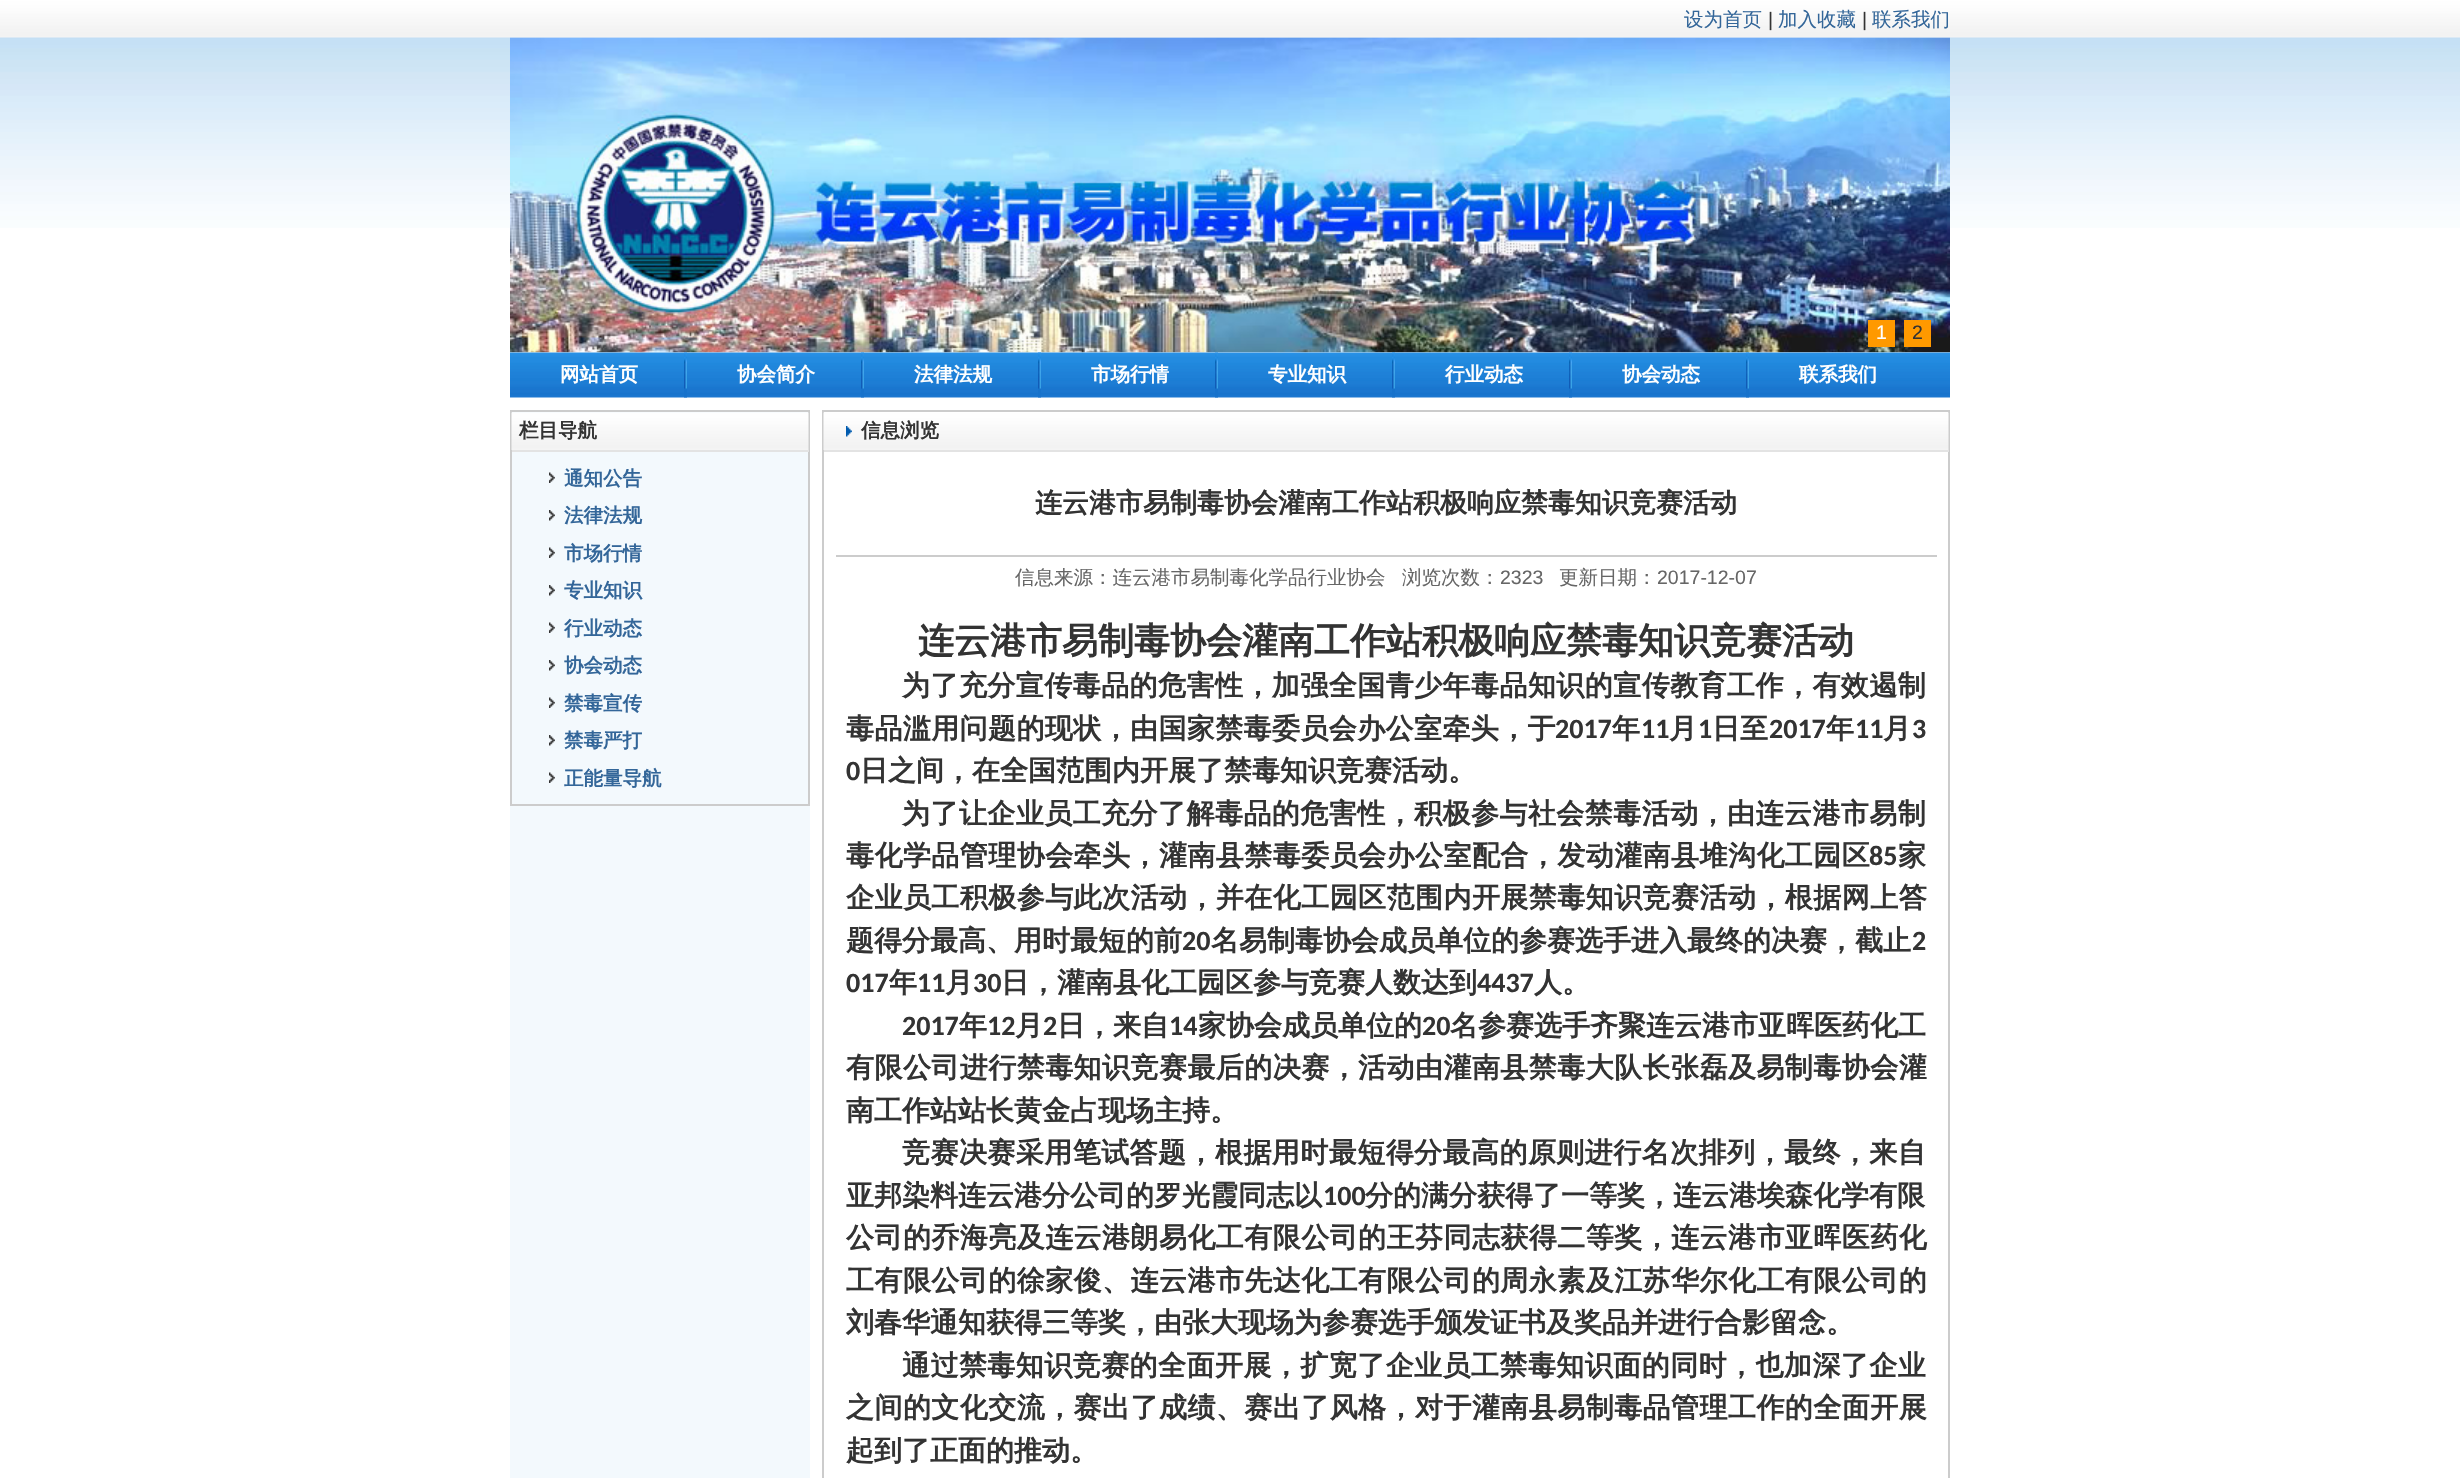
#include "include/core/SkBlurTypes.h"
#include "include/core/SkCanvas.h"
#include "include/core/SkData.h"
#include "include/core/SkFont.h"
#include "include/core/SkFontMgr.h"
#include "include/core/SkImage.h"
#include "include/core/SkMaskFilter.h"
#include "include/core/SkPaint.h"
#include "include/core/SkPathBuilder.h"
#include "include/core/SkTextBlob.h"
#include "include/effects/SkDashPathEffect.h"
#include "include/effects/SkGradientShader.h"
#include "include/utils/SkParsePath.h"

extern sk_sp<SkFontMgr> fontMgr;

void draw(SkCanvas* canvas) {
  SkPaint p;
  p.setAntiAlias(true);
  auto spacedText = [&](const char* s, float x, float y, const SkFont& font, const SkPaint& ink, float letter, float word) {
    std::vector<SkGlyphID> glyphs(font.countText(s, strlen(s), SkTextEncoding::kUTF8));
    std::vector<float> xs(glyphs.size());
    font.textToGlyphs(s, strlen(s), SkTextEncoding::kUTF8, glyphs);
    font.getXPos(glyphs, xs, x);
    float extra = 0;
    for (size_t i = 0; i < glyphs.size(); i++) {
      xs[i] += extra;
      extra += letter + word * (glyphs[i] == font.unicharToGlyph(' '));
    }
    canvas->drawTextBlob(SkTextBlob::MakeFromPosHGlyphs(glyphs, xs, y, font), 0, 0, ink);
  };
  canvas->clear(SK_ColorWHITE);
  canvas->drawImageRect(SkImages::DeferredFromEncodedData(SkData::MakeFromFileName("images/1.png")), SkRect::MakeLTRB(0, 37, 2460, 228), SkSamplingOptions());
  canvas->drawImageRect(SkImages::DeferredFromEncodedData(SkData::MakeFromFileName("images/2.png")), SkRect::MakeLTRB(0, 0, 2460, 38), SkSamplingOptions());
  canvas->drawImageRect(SkImages::DeferredFromEncodedData(SkData::MakeFromFileName("images/3.png")), SkRect::MakeLTRB(510, 37, 1950, 353), SkSamplingOptions());
  p.setColor(SkColorSetRGB(255, 153, 0));
  canvas->drawRect(SkRect::MakeLTRB(1868, 320, 1895, 347), p);
  canvas->drawRect(SkRect::MakeLTRB(1904, 320, 1931, 347), p);
  canvas->drawImageRect(SkImages::DeferredFromEncodedData(SkData::MakeFromFileName("images/4.png")), SkRect::MakeLTRB(510, 352, 1950, 398), SkSamplingOptions());
  canvas->drawImageRect(SkImages::DeferredFromEncodedData(SkData::MakeFromFileName("images/5.png")), SkRect::MakeLTRB(684, 352, 687, 398), SkSamplingOptions());
  canvas->drawImageRect(SkImages::DeferredFromEncodedData(SkData::MakeFromFileName("images/6.png")), SkRect::MakeLTRB(861, 352, 864, 398), SkSamplingOptions());
  canvas->drawImageRect(SkImages::DeferredFromEncodedData(SkData::MakeFromFileName("images/7.png")), SkRect::MakeLTRB(1038, 352, 1041, 398), SkSamplingOptions());
  canvas->drawImageRect(SkImages::DeferredFromEncodedData(SkData::MakeFromFileName("images/8.png")), SkRect::MakeLTRB(1215, 352, 1218, 398), SkSamplingOptions());
  canvas->drawImageRect(SkImages::DeferredFromEncodedData(SkData::MakeFromFileName("images/9.png")), SkRect::MakeLTRB(1392, 352, 1395, 398), SkSamplingOptions());
  canvas->drawImageRect(SkImages::DeferredFromEncodedData(SkData::MakeFromFileName("images/10.png")), SkRect::MakeLTRB(1569, 352, 1572, 398), SkSamplingOptions());
  canvas->drawImageRect(SkImages::DeferredFromEncodedData(SkData::MakeFromFileName("images/11.png")), SkRect::MakeLTRB(1746, 352, 1749, 398), SkSamplingOptions());
  p.setColor(SkColorSetRGB(243, 249, 253));
  canvas->drawRect(SkRect::MakeLTRB(510, 412, 810, 1478), p);
  p.setStyle(SkPaint::kStroke_Style);
  p.setStrokeWidth(2);
  p.setColor(SkColorSetRGB(204, 204, 204));
  canvas->drawRect(SkRect::MakeLTRB(511, 411, 809, 805), p);
  canvas->drawImageRect(SkImages::DeferredFromEncodedData(SkData::MakeFromFileName("images/12.png")), SkRect::MakeLTRB(511, 412, 809, 450), SkSamplingOptions());
  p.setStyle(SkPaint::kFill_Style);
  p.setColor(SkColorSetRGB(227, 227, 227));
  canvas->drawRect(SkRect::MakeLTRB(512, 450, 809, 452), p);
  canvas->drawImageRect(SkImages::DeferredFromEncodedData(SkData::MakeFromFileName("images/13.png")), SkRect::MakeLTRB(549, 472, 555, 483), SkSamplingOptions());
  canvas->drawImageRect(SkImages::DeferredFromEncodedData(SkData::MakeFromFileName("images/14.png")), SkRect::MakeLTRB(549, 510, 555, 521), SkSamplingOptions());
  canvas->drawImageRect(SkImages::DeferredFromEncodedData(SkData::MakeFromFileName("images/13.png")), SkRect::MakeLTRB(549, 547, 555, 558), SkSamplingOptions());
  canvas->drawImageRect(SkImages::DeferredFromEncodedData(SkData::MakeFromFileName("images/14.png")), SkRect::MakeLTRB(549, 585, 555, 596), SkSamplingOptions());
  canvas->drawImageRect(SkImages::DeferredFromEncodedData(SkData::MakeFromFileName("images/13.png")), SkRect::MakeLTRB(549, 622, 555, 633), SkSamplingOptions());
  canvas->drawImageRect(SkImages::DeferredFromEncodedData(SkData::MakeFromFileName("images/14.png")), SkRect::MakeLTRB(549, 660, 555, 671), SkSamplingOptions());
  canvas->drawImageRect(SkImages::DeferredFromEncodedData(SkData::MakeFromFileName("images/13.png")), SkRect::MakeLTRB(549, 697, 555, 708), SkSamplingOptions());
  canvas->drawImageRect(SkImages::DeferredFromEncodedData(SkData::MakeFromFileName("images/14.png")), SkRect::MakeLTRB(549, 735, 555, 746), SkSamplingOptions());
  canvas->drawImageRect(SkImages::DeferredFromEncodedData(SkData::MakeFromFileName("images/13.png")), SkRect::MakeLTRB(549, 772, 555, 783), SkSamplingOptions());
  p.setStyle(SkPaint::kStroke_Style);
  p.setColor(SkColorSetRGB(204, 204, 204));
  canvas->drawRect(SkRect::MakeLTRB(823, 411, 1949, 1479), p);
  canvas->drawImageRect(SkImages::DeferredFromEncodedData(SkData::MakeFromFileName("images/15.png")), SkRect::MakeLTRB(823, 412, 1949, 450), SkSamplingOptions());
  p.setStyle(SkPaint::kFill_Style);
  p.setColor(SkColorSetRGB(227, 227, 227));
  canvas->drawRect(SkRect::MakeLTRB(824, 450, 1949, 452), p);
  canvas->drawImageRect(SkImages::DeferredFromEncodedData(SkData::MakeFromFileName("images/16.png")), SkRect::MakeLTRB(846, 426, 852, 437), SkSamplingOptions());
  p.setColor(SkColorSetRGB(204, 204, 204));
  canvas->drawRect(SkRect::MakeLTRB(836, 555, 1937, 557), p);
  SkFont font1(fontMgr->matchFamilyStyle("WenQuanYi Zen Hei", SkFontStyle(500, SkFontStyle::kNormal_Width, SkFontStyle::kUpright_Slant)), 19.5f);
  font1.setSubpixel(true);
  p.setColor(SkColorSetRGB(51, 102, 153));
  canvas->drawString("设为首页", 1684, 26, font1, p);
  SkFont font2(fontMgr->matchFamilyStyle("Liberation Sans", SkFontStyle::Normal()), 19.5f);
  font2.setSubpixel(true);
  p.setColor(SkColorSetRGB(51, 51, 51));
  canvas->drawString("|", 1768, 26, font2, p);
  p.setColor(SkColorSetRGB(51, 102, 153));
  canvas->drawString("加入收藏", 1778, 26, font1, p);
  p.setColor(SkColorSetRGB(51, 51, 51));
  canvas->drawString("|", 1862, 26, font2, p);
  p.setColor(SkColorSetRGB(51, 102, 153));
  canvas->drawString("联系我们", 1872, 26, font1, p);
  p.setColor(SK_ColorWHITE);
  canvas->drawString("1", 1876, 339, font2, p);
  p.setColor(SkColorSetRGB(51, 51, 51));
  canvas->drawString("2", 1912, 339, font2, p);
  SkFont font3(fontMgr->matchFamilyStyle("WenQuanYi Zen Hei", SkFontStyle::Bold()), 19.5f);
  font3.setSubpixel(true);
  p.setColor(SK_ColorWHITE);
  canvas->drawString("网站首页", 560, 381, font3, p);
  canvas->drawString("协会简介", 737, 381, font3, p);
  canvas->drawString("法律法规", 914, 381, font3, p);
  canvas->drawString("市场行情", 1091, 381, font3, p);
  canvas->drawString("专业知识", 1268, 381, font3, p);
  canvas->drawString("行业动态", 1445, 381, font3, p);
  canvas->drawString("协会动态", 1622, 381, font3, p);
  canvas->drawString("联系我们", 1799, 381, font3, p);
  p.setColor(SkColorSetRGB(51, 51, 51));
  canvas->drawString("栏目导航", 519, 437, font3, p);
  p.setColor(SkColorSetRGB(51, 102, 153));
  canvas->drawString("通知公告", 564, 485, font3, p);
  canvas->drawString("法律法规", 564, 522, font3, p);
  canvas->drawString("市场行情", 564, 560, font3, p);
  canvas->drawString("专业知识", 564, 597, font3, p);
  canvas->drawString("行业动态", 564, 635, font3, p);
  canvas->drawString("协会动态", 564, 672, font3, p);
  canvas->drawString("禁毒宣传", 564, 710, font3, p);
  canvas->drawString("禁毒严打", 564, 747, font3, p);
  canvas->drawString("正能量导航", 564, 785, font3, p);
  p.setColor(SkColorSetRGB(51, 51, 51));
  canvas->drawString("信息浏览", 861, 437, font3, p);
  SkFont font4(fontMgr->matchFamilyStyle("WenQuanYi Zen Hei", SkFontStyle::Bold()), 27);
  font4.setSubpixel(true);
  canvas->drawString("连云港市易制毒协会灌南工作站积极响应禁毒知识竞赛活动", 1035, 512, font4, p);
  p.setColor(SkColorSetRGB(102, 102, 102));
  canvas->drawString("信息来源：连云港市易制毒化学品行业协会", 1015, 584, font1, p);
  canvas->drawString("浏览次数：", 1402, 584, font1, p);
  canvas->drawString("2323", 1500, 584, font2, p);
  canvas->drawString("更新日期：", 1559, 584, font1, p);
  canvas->drawString("2017-12-07", 1657, 584, font2, p);
  SkFont font5(fontMgr->matchFamilyStyle("WenQuanYi Zen Hei", SkFontStyle::Bold()), 36);
  font5.setSubpixel(true);
  p.setColor(SkColorSetRGB(51, 51, 51));
  canvas->drawString("连云港市易制毒协会灌南工作站积极响应禁毒知识竞赛活动", 918, 653, font5, p);
  SkFont font6(fontMgr->matchFamilyStyle("WenQuanYi Zen Hei", SkFontStyle::Bold()), 28);
  font6.setSubpixel(true);
  spacedText("为了充分宣传毒品的危害性，加强全国青少年毒品知识的宣传教育工作，有效遏制", 902, 695, font6, p, 0.45f, 0);
  spacedText("毒品滥用问题的现状，由国家禁毒委员会办公室牵头，于", 846, 738, font6, p, 0.4f, 0);
  SkFont font7(fontMgr->matchFamilyStyle("Carlito", SkFontStyle::Bold()), 28);
  font7.setSubpixel(true);
  canvas->drawString("2017", 1555, 738, font7, p);
  canvas->drawString("年", 1612, 738, font6, p);
  canvas->drawString("11", 1641, 738, font7, p);
  canvas->drawString("月", 1669, 738, font6, p);
  canvas->drawString("1", 1698, 738, font7, p);
  canvas->drawString("日至", 1712, 738, font6, p);
  canvas->drawString("2017", 1769, 738, font7, p);
  canvas->drawString("年", 1826, 738, font6, p);
  canvas->drawString("11", 1855, 738, font7, p);
  canvas->drawString("月", 1883, 738, font6, p);
  canvas->drawString("3", 1912, 738, font7, p);
  canvas->drawString("0", 846, 780, font7, p);
  canvas->drawString("日之间，在全国范围内开展了禁毒知识竞赛活动。", 860, 780, font6, p);
  spacedText("为了让企业员工充分了解毒品的危害性，积极参与社会禁毒活动，由连云港市易制", 902, 823, font6, p, 0.45f, 0);
  spacedText("毒化学品管理协会牵头，灌南县禁毒委员会办公室配合，发动灌南县堆沟化工园区", 846, 865, font6, p, 0.45f, 0);
  canvas->drawString("85", 1869, 865, font7, p);
  canvas->drawString("家", 1898, 865, font6, p);
  spacedText("企业员工积极参与此次活动，并在化工园区范围内开展禁毒知识竞赛活动，根据网上答", 846, 907, font6, p, 0.45f, 0);
  canvas->drawString("题得分最高、用时最短的前", 846, 950, font6, p);
  canvas->drawString("20", 1182, 950, font7, p);
  canvas->drawString("名易制毒协会成员单位的参赛选手进入最终的决赛，截止", 1211, 950, font6, p);
  canvas->drawString("2", 1912, 950, font7, p);
  canvas->drawString("017", 846, 992, font7, p);
  canvas->drawString("年", 889, 992, font6, p);
  canvas->drawString("11", 917, 992, font7, p);
  canvas->drawString("月", 945, 992, font6, p);
  canvas->drawString("30", 973, 992, font7, p);
  canvas->drawString("日，灌南县化工园区参与竞赛人数达到", 1001, 992, font6, p);
  canvas->drawString("4437", 1477, 992, font7, p);
  canvas->drawString("人。", 1534, 992, font6, p);
  canvas->drawString("2017", 902, 1035, font7, p);
  canvas->drawString("年", 959, 1035, font6, p);
  canvas->drawString("12", 987, 1035, font7, p);
  canvas->drawString("月", 1015, 1035, font6, p);
  canvas->drawString("2", 1043, 1035, font7, p);
  canvas->drawString("日，来自", 1057, 1035, font6, p);
  canvas->drawString("14", 1169, 1035, font7, p);
  canvas->drawString("家协会成员单位的", 1198, 1035, font6, p);
  canvas->drawString("20", 1422, 1035, font7, p);
  canvas->drawString("名参赛选手齐聚连云港市亚晖医药化工", 1450, 1035, font6, p);
  spacedText("有限公司进行禁毒知识竞赛最后的决赛，活动由灌南县禁毒大队长张磊及易制毒协会灌", 846, 1077, font6, p, 0.45f, 0);
  canvas->drawString("南工作站站长黄金占现场主持。", 846, 1120, font6, p);
  spacedText("竞赛决赛采用笔试答题，根据用时最短得分最高的原则进行名次排列，最终，来自", 902, 1162, font6, p, 0.45f, 0);
  canvas->drawString("亚邦染料连云港分公司的罗光霞同志以", 846, 1205, font6, p);
  canvas->drawString("100", 1323, 1205, font7, p);
  canvas->drawString("分的满分获得了一等奖，连云港埃森化学有限", 1365, 1205, font6, p);
  spacedText("公司的乔海亮及连云港朗易化工有限公司的王芬同志获得二等奖，连云港市亚晖医药化", 846, 1247, font6, p, 0.45f, 0);
  spacedText("工有限公司的徐家俊、连云港市先达化工有限公司的周永素及江苏华尔化工有限公司的", 846, 1290, font6, p, 0.45f, 0);
  canvas->drawString("刘春华通知获得三等奖，由张大现场为参赛选手颁发证书及奖品并进行合影留念。", 846, 1332, font6, p);
  spacedText("通过禁毒知识竞赛的全面开展，扩宽了企业员工禁毒知识面的同时，也加深了企业", 902, 1375, font6, p, 0.45f, 0);
  spacedText("之间的文化交流，赛出了成绩、赛出了风格，对于灌南县易制毒品管理工作的全面开展", 846, 1417, font6, p, 0.45f, 0);
  canvas->drawString("起到了正面的推动。", 846, 1460, font6, p);
}
